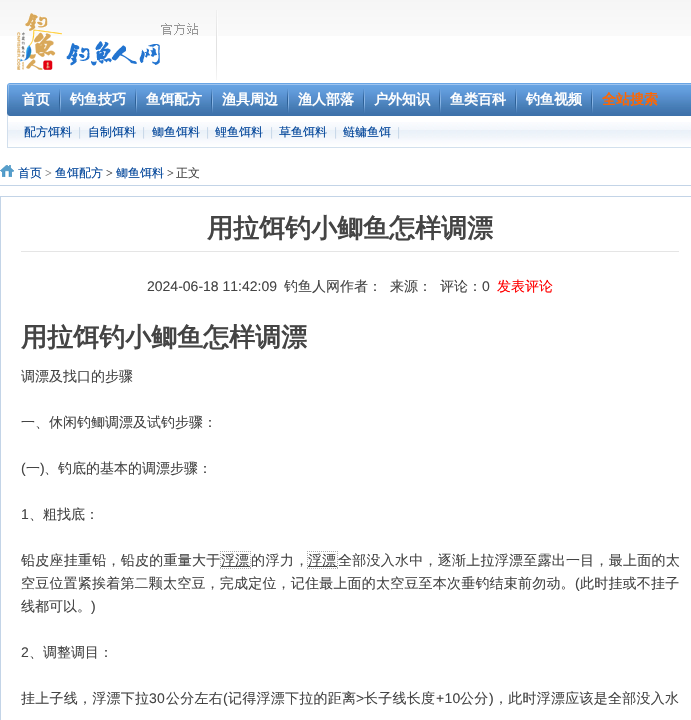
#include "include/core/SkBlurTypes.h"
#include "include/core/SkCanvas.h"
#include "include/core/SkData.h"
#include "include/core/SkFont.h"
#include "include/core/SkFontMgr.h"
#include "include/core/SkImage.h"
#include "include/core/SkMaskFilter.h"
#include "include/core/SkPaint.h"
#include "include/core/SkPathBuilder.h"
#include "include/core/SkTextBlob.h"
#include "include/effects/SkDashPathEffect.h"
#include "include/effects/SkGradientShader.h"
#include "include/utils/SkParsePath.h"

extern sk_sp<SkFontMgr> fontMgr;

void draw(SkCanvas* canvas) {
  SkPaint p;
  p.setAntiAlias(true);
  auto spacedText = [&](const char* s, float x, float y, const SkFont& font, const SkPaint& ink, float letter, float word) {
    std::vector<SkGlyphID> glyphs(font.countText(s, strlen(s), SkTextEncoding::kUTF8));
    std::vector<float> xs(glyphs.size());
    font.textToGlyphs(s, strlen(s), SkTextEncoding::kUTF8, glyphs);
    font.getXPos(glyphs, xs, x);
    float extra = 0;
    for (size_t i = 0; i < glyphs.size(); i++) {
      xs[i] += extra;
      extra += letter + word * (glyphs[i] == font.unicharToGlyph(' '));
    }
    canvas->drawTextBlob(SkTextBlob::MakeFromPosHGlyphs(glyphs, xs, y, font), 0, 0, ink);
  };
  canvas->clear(SK_ColorWHITE);
  canvas->drawImageRect(SkImages::DeferredFromEncodedData(SkData::MakeFromFileName("images/1.png")), SkRect::MakeLTRB(0, 0, 691, 36), SkSamplingOptions());
  canvas->drawImageRect(SkImages::DeferredFromEncodedData(SkData::MakeFromFileName("images/2.png")), SkRect::MakeLTRB(216, 10, 218, 80), SkSamplingOptions());
  canvas->drawImageRect(SkImages::DeferredFromEncodedData(SkData::MakeFromFileName("images/3.png")), SkRect::MakeLTRB(17, 13, 198, 70), SkSamplingOptions());
  canvas->drawImageRect(SkImages::DeferredFromEncodedData(SkData::MakeFromFileName("images/4.png")), SkRect::MakeLTRB(7, 83, 15, 116), SkSamplingOptions());
  canvas->drawImageRect(SkImages::DeferredFromEncodedData(SkData::MakeFromFileName("images/5.png")), SkRect::MakeLTRB(15, 83, 691, 116), SkSamplingOptions());
  canvas->drawImageRect(SkImages::DeferredFromEncodedData(SkData::MakeFromFileName("images/6.png")), SkRect::MakeLTRB(59, 89, 61, 113), SkSamplingOptions());
  canvas->drawImageRect(SkImages::DeferredFromEncodedData(SkData::MakeFromFileName("images/6.png")), SkRect::MakeLTRB(135, 89, 137, 113), SkSamplingOptions());
  canvas->drawImageRect(SkImages::DeferredFromEncodedData(SkData::MakeFromFileName("images/6.png")), SkRect::MakeLTRB(211, 89, 213, 113), SkSamplingOptions());
  canvas->drawImageRect(SkImages::DeferredFromEncodedData(SkData::MakeFromFileName("images/6.png")), SkRect::MakeLTRB(287, 89, 289, 113), SkSamplingOptions());
  canvas->drawImageRect(SkImages::DeferredFromEncodedData(SkData::MakeFromFileName("images/6.png")), SkRect::MakeLTRB(363, 89, 365, 113), SkSamplingOptions());
  canvas->drawImageRect(SkImages::DeferredFromEncodedData(SkData::MakeFromFileName("images/6.png")), SkRect::MakeLTRB(439, 89, 441, 113), SkSamplingOptions());
  canvas->drawImageRect(SkImages::DeferredFromEncodedData(SkData::MakeFromFileName("images/6.png")), SkRect::MakeLTRB(515, 89, 517, 113), SkSamplingOptions());
  canvas->drawImageRect(SkImages::DeferredFromEncodedData(SkData::MakeFromFileName("images/6.png")), SkRect::MakeLTRB(591, 89, 593, 113), SkSamplingOptions());
  canvas->drawImageRect(SkImages::DeferredFromEncodedData(SkData::MakeFromFileName("images/7.png")), SkRect::MakeLTRB(8, 122, 691, 148), SkSamplingOptions());
  p.setColor(SkColorSetRGB(210, 223, 237));
  canvas->drawRect(SkRect::MakeLTRB(7, 116, 8, 148), p);
  canvas->drawImageRect(SkImages::DeferredFromEncodedData(SkData::MakeFromFileName("images/8.png")), SkRect::MakeLTRB(0, 165, 14, 177), SkSamplingOptions());
  p.setColor(SkColorSetRGB(195, 212, 231));
  canvas->drawRect(SkRect::MakeLTRB(0, 185, 691, 186), p);
  p.setStyle(SkPaint::kStroke_Style);
  p.setStrokeWidth(1);
  canvas->drawRect(SkRect::MakeLTRB(0.5f, 196.5f, 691.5f, 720.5f), p);
  p.setStyle(SkPaint::kFill_Style);
  p.setColor(SkColorSetRGB(229, 229, 229));
  canvas->drawRect(SkRect::MakeLTRB(21, 251, 679, 252), p);
  p.setStyle(SkPaint::kStroke_Style);
  p.setColor(SkColorSetRGB(170, 170, 170));
  p.setPathEffect(SkDashPathEffect::Make({{1, 1}}, 0));
  canvas->drawPath(SkPathBuilder().moveTo(220, 551.5f).lineTo(251, 551.5f).moveTo(250.5f, 551).lineTo(250.5f, 569).moveTo(220, 568.5f).lineTo(251, 568.5f).moveTo(220.5f, 551).lineTo(220.5f, 569).detach(), p);
  p.setPathEffect(nullptr);
  p.setStyle(SkPaint::kFill_Style);
  p.setColor(SkColorSetRGB(68, 68, 68));
  canvas->drawRect(SkRect::MakeLTRB(221, 566, 250, 567), p);
  p.setStyle(SkPaint::kStroke_Style);
  p.setColor(SkColorSetRGB(170, 170, 170));
  p.setPathEffect(SkDashPathEffect::Make({{1, 1}}, 0));
  canvas->drawPath(SkPathBuilder().moveTo(307, 551.5f).lineTo(338, 551.5f).moveTo(337.5f, 551).lineTo(337.5f, 569).moveTo(307, 568.5f).lineTo(338, 568.5f).moveTo(307.5f, 551).lineTo(307.5f, 569).detach(), p);
  p.setPathEffect(nullptr);
  p.setStyle(SkPaint::kFill_Style);
  p.setColor(SkColorSetRGB(68, 68, 68));
  canvas->drawRect(SkRect::MakeLTRB(308, 566, 337, 567), p);
  SkFont font1(fontMgr->matchFamilyStyle("WenQuanYi Zen Hei", SkFontStyle::Bold()), 14);
  font1.setSubpixel(true);
  p.setColor(SK_ColorWHITE);
  canvas->drawString("首页", 22, 104, font1, p);
  canvas->drawString("钓鱼技巧", 70, 104, font1, p);
  canvas->drawString("鱼饵配方", 146, 104, font1, p);
  canvas->drawString("渔具周边", 222, 104, font1, p);
  canvas->drawString("渔人部落", 298, 104, font1, p);
  canvas->drawString("户外知识", 374, 104, font1, p);
  canvas->drawString("鱼类百科", 450, 104, font1, p);
  canvas->drawString("钓鱼视频", 526, 104, font1, p);
  p.setColor(SkColorSetRGB(255, 102, 0));
  canvas->drawString("全站搜索", 602, 104, font1, p);
  SkFont font2(fontMgr->matchFamilyStyle("WenQuanYi Zen Hei", SkFontStyle(500, SkFontStyle::kNormal_Width, SkFontStyle::kUpright_Slant)), 12);
  font2.setSubpixel(true);
  p.setColor(SkColorSetRGB(0, 68, 153));
  canvas->drawString("配方饵料", 24, 136, font2, p);
  SkFont font3(fontMgr->matchFamilyStyle("Liberation Sans", SkFontStyle::Normal()), 12);
  font3.setSubpixel(true);
  p.setColor(SkColorSetRGB(200, 216, 233));
  canvas->drawString("|", 78, 136, font3, p);
  p.setColor(SkColorSetRGB(0, 68, 153));
  canvas->drawString("自制饵料", 88, 136, font2, p);
  p.setColor(SkColorSetRGB(200, 216, 233));
  canvas->drawString("|", 142, 136, font3, p);
  p.setColor(SkColorSetRGB(0, 68, 153));
  canvas->drawString("鲫鱼饵料", 152, 136, font2, p);
  p.setColor(SkColorSetRGB(200, 216, 233));
  canvas->drawString("|", 206, 136, font3, p);
  p.setColor(SkColorSetRGB(0, 68, 153));
  canvas->drawString("鲤鱼饵料", 215, 136, font2, p);
  p.setColor(SkColorSetRGB(200, 216, 233));
  canvas->drawString("|", 270, 136, font3, p);
  p.setColor(SkColorSetRGB(0, 68, 153));
  canvas->drawString("草鱼饵料", 279, 136, font2, p);
  p.setColor(SkColorSetRGB(200, 216, 233));
  canvas->drawString("|", 334, 136, font3, p);
  p.setColor(SkColorSetRGB(0, 68, 153));
  canvas->drawString("鲢鳙鱼饵", 343, 136, font2, p);
  p.setColor(SkColorSetRGB(200, 216, 233));
  canvas->drawString("|", 397, 136, font3, p);
  p.setColor(SkColorSetRGB(0, 68, 153));
  canvas->drawString("首页", 18, 177, font2, p);
  SkFont font4(fontMgr->matchFamilyStyle("Liberation Serif", SkFontStyle::Normal()), 12);
  font4.setSubpixel(true);
  p.setColor(SkColorSetRGB(126, 126, 126));
  canvas->drawString(">", 45, 177, font4, p);
  p.setColor(SkColorSetRGB(0, 68, 153));
  canvas->drawString("鱼饵配方", 55, 177, font2, p);
  p.setColor(SkColorSetRGB(68, 68, 68));
  canvas->drawString(">", 106, 177, font4, p);
  p.setColor(SkColorSetRGB(0, 68, 153));
  canvas->drawString("鲫鱼饵料", 116, 177, font2, p);
  p.setColor(SkColorSetRGB(68, 68, 68));
  canvas->drawString(">", 167, 177, font4, p);
  canvas->drawString("正文", 176, 177, font2, p);
  SkFont font5(fontMgr->matchFamilyStyle("WenQuanYi Zen Hei", SkFontStyle::Bold()), 26);
  font5.setSubpixel(true);
  canvas->drawString("用拉饵钓小鲫鱼怎样调漂", 207, 237, font5, p);
  SkFont font6(fontMgr->matchFamilyStyle("Liberation Sans", SkFontStyle::Normal()), 14);
  font6.setSubpixel(true);
  canvas->drawString("2024-06-18 11:42:09", 147, 291, font6, p);
  SkFont font7(fontMgr->matchFamilyStyle("WenQuanYi Zen Hei", SkFontStyle(500, SkFontStyle::kNormal_Width, SkFontStyle::kUpright_Slant)), 14);
  font7.setSubpixel(true);
  canvas->drawString("钓鱼人网作者：", 284, 291, font7, p);
  canvas->drawString("来源：", 390, 291, font7, p);
  canvas->drawString("评论：", 440, 291, font7, p);
  canvas->drawString("0", 482, 291, font6, p);
  p.setColor(SkColorSetRGB(255, 0, 0));
  canvas->drawString("发表评论", 497, 291, font7, p);
  p.setColor(SkColorSetRGB(68, 68, 68));
  canvas->drawString("用拉饵钓小鲫鱼怎样调漂", 21, 346, font5, p);
  canvas->drawString("调漂及找口的步骤", 21, 381, font7, p);
  canvas->drawString("一、休闲钓鲫调漂及试钓步骤：", 21, 427, font7, p);
  canvas->drawString("(", 21, 473, font6, p);
  canvas->drawString("一", 26, 473, font7, p);
  canvas->drawString(")", 40, 473, font6, p);
  canvas->drawString("、钓底的基本的调漂步骤：", 44, 473, font7, p);
  canvas->drawString("1", 21, 519, font6, p);
  canvas->drawString("、粗找底：", 29, 519, font7, p);
  spacedText("铅皮座挂重铅，铅皮的重量大于", 21, 565, font7, p, 0.25f, 0);
  canvas->drawString("浮漂", 221, 565, font7, p);
  spacedText("的浮力，", 251, 565, font7, p, 0.5f, 0);
  canvas->drawString("浮漂", 308, 565, font7, p);
  spacedText("全部没入水中，逐渐上拉浮漂至露出一目，最上面的太", 338, 565, font7, p, 0.25f, 0);
  spacedText("空豆位置紧挨着第二颗太空豆，完成定位，记住最上面的太空豆至本次垂钓结束前勿动。", 21, 588, font7, p, 0.2f, 0);
  spacedText("(", 575, 588, font6, p, 0.2f, 0);
  spacedText("此时挂或不挂子", 580, 588, font7, p, 0.2f, 0);
  canvas->drawString("线都可以。", 21, 611, font7, p);
  canvas->drawString(")", 91, 611, font6, p);
  canvas->drawString("2", 21, 657, font6, p);
  canvas->drawString("、调整调目：", 29, 657, font7, p);
  spacedText("挂上子线，浮漂下拉", 21, 703, font7, p, 0.25f, 0);
  spacedText("30", 149, 703, font6, p, 0.25f, 0);
  spacedText("公分左右", 166, 703, font7, p, 0.25f, 0);
  spacedText("(", 223, 703, font6, p, 0.25f, 0);
  spacedText("记得浮漂下拉的距离", 228, 703, font7, p, 0.25f, 0);
  spacedText(">", 356, 703, font6, p, 0.25f, 0);
  spacedText("长子线长度", 364, 703, font7, p, 0.25f, 0);
  spacedText("+10", 436, 703, font6, p, 0.25f, 0);
  spacedText("公分", 460, 703, font7, p, 0.25f, 0);
  spacedText(")", 489, 703, font6, p, 0.25f, 0);
  spacedText("，此时浮漂应该是全部没入水", 494, 703, font7, p, 0.25f, 0);
}
